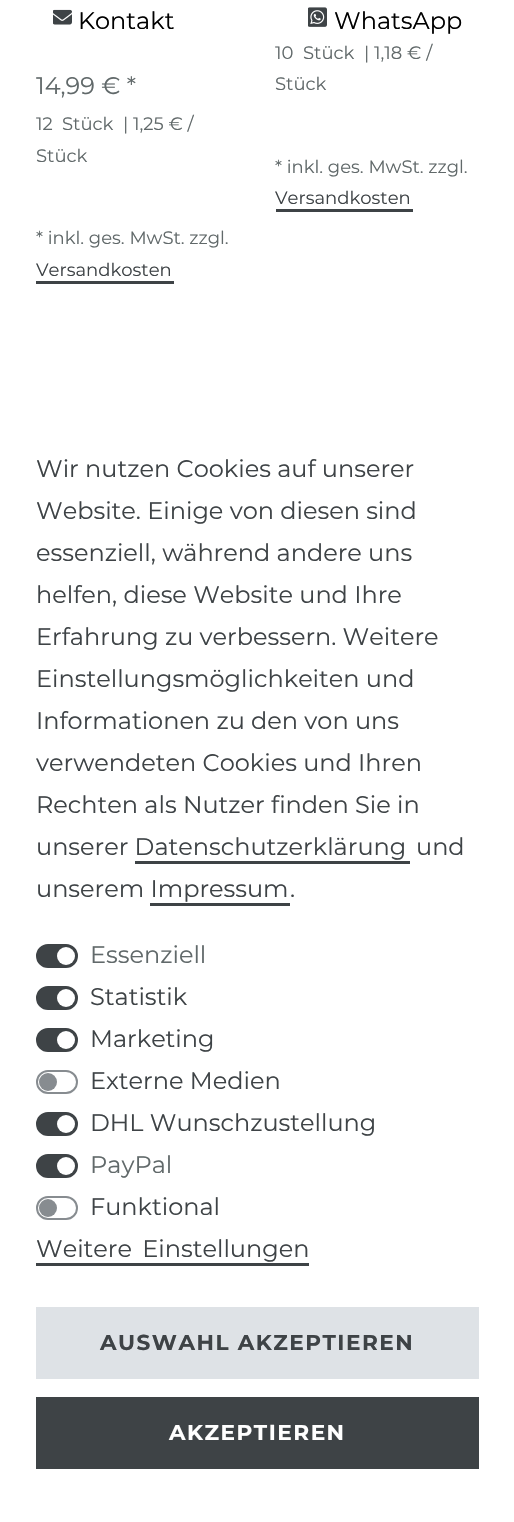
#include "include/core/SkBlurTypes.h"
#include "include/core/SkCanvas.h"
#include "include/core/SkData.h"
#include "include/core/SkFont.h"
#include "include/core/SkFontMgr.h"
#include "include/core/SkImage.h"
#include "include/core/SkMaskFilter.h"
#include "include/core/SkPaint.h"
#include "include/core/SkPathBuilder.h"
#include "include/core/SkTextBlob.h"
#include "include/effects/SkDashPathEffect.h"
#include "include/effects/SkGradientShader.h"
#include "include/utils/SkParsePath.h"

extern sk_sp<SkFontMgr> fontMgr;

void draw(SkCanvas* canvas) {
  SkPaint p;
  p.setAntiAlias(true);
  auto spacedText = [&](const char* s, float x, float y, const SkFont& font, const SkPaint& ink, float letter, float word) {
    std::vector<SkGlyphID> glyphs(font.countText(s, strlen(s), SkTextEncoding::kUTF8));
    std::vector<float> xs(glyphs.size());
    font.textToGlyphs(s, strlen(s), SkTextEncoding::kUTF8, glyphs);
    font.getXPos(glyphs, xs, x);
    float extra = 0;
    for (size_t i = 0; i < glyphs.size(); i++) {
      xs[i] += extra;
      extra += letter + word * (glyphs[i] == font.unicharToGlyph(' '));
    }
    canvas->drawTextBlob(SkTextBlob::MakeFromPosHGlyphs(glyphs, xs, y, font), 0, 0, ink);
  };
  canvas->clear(SK_ColorWHITE);
  canvas->drawImageRect(SkImages::DeferredFromEncodedData(SkData::MakeFromFileName("images/1.png")), SkRect::MakeLTRB(53, 9, 72, 25), SkSamplingOptions());
  canvas->drawImageRect(SkImages::DeferredFromEncodedData(SkData::MakeFromFileName("images/2.png")), SkRect::MakeLTRB(308, 7, 327, 27), SkSamplingOptions());
  p.setColor(SkColorSetRGB(62, 67, 70));
  canvas->drawRect(SkRect::MakeLTRB(36, 281, 174, 284), p);
  canvas->drawRect(SkRect::MakeLTRB(276, 209, 413, 212), p);
  canvas->drawRect(SkRect::MakeLTRB(135, 861, 410, 864), p);
  canvas->drawRect(SkRect::MakeLTRB(150, 903, 290, 906), p);
  canvas->drawRoundRect(SkRect::MakeLTRB(37, 945, 77, 967), 11, 11, p);
  p.setStyle(SkPaint::kStroke_Style);
  p.setStrokeWidth(2);
  canvas->drawRoundRect(SkRect::MakeLTRB(37, 945, 77, 967), 11, 11, p);
  p.setStyle(SkPaint::kFill_Style);
  p.setColor(SK_ColorWHITE);
  canvas->drawCircle(66, 956, 9, p);
  p.setColor(SkColorSetRGB(62, 67, 70));
  canvas->drawRoundRect(SkRect::MakeLTRB(37, 987, 77, 1009), 11, 11, p);
  p.setStyle(SkPaint::kStroke_Style);
  canvas->drawRoundRect(SkRect::MakeLTRB(37, 987, 77, 1009), 11, 11, p);
  p.setStyle(SkPaint::kFill_Style);
  p.setColor(SK_ColorWHITE);
  canvas->drawCircle(66, 998, 9, p);
  p.setColor(SkColorSetRGB(62, 67, 70));
  canvas->drawRoundRect(SkRect::MakeLTRB(37, 1029, 77, 1051), 11, 11, p);
  p.setStyle(SkPaint::kStroke_Style);
  canvas->drawRoundRect(SkRect::MakeLTRB(37, 1029, 77, 1051), 11, 11, p);
  p.setStyle(SkPaint::kFill_Style);
  p.setColor(SK_ColorWHITE);
  canvas->drawCircle(66, 1040, 9, p);
  p.setStyle(SkPaint::kStroke_Style);
  p.setColor(SkColorSetRGB(135, 140, 144));
  canvas->drawRoundRect(SkRect::MakeLTRB(37, 1071, 77, 1093), 11, 11, p);
  p.setStyle(SkPaint::kFill_Style);
  canvas->drawCircle(48, 1082, 9, p);
  p.setColor(SkColorSetRGB(62, 67, 70));
  canvas->drawRoundRect(SkRect::MakeLTRB(37, 1113, 77, 1135), 11, 11, p);
  p.setStyle(SkPaint::kStroke_Style);
  canvas->drawRoundRect(SkRect::MakeLTRB(37, 1113, 77, 1135), 11, 11, p);
  p.setStyle(SkPaint::kFill_Style);
  p.setColor(SK_ColorWHITE);
  canvas->drawCircle(66, 1124, 9, p);
  p.setColor(SkColorSetRGB(62, 67, 70));
  canvas->drawRoundRect(SkRect::MakeLTRB(37, 1155, 77, 1177), 11, 11, p);
  p.setStyle(SkPaint::kStroke_Style);
  canvas->drawRoundRect(SkRect::MakeLTRB(37, 1155, 77, 1177), 11, 11, p);
  p.setStyle(SkPaint::kFill_Style);
  p.setColor(SK_ColorWHITE);
  canvas->drawCircle(66, 1166, 9, p);
  p.setStyle(SkPaint::kStroke_Style);
  p.setColor(SkColorSetRGB(135, 140, 144));
  canvas->drawRoundRect(SkRect::MakeLTRB(37, 1197, 77, 1219), 11, 11, p);
  p.setStyle(SkPaint::kFill_Style);
  canvas->drawCircle(48, 1208, 9, p);
  p.setColor(SkColorSetRGB(62, 67, 70));
  canvas->drawRect(SkRect::MakeLTRB(36, 1263, 309, 1266), p);
  p.setColor(SkColorSetRGB(222, 226, 230));
  canvas->drawRect(SkRect::MakeLTRB(36, 1307, 479, 1379), p);
  p.setColor(SkColorSetRGB(62, 67, 70));
  canvas->drawRect(SkRect::MakeLTRB(36, 1397, 479, 1469), p);
  SkFont font1(fontMgr->matchFamilyStyle("Montserrat", SkFontStyle::Normal()), 24);
  font1.setSubpixel(true);
  p.setColor(SK_ColorBLACK);
  canvas->drawString("Kontakt", 78, 29, font1, p);
  canvas->drawString("WhatsApp", 334, 29, font1, p);
  p.setColor(SkColorSetRGB(97, 105, 106));
  canvas->drawString("14,99 € *", 36, 94, font1, p);
  SkFont font2(fontMgr->matchFamilyStyle("Montserrat", SkFontStyle::Normal()), 18);
  font2.setSubpixel(true);
  canvas->drawString("12", 36, 130, font2, p);
  canvas->drawString("Stück", 62, 130, font2, p);
  canvas->drawString("| 1,25 € /", 123, 130, font2, p);
  canvas->drawString("Stück", 36, 162, font2, p);
  canvas->drawString("* inkl. ges. MwSt. zzgl.", 36, 244, font2, p);
  p.setColor(SkColorSetRGB(62, 67, 70));
  canvas->drawString("Versandkosten", 36, 276, font2, p);
  p.setColor(SkColorSetRGB(97, 105, 106));
  canvas->drawString("10", 275, 59, font2, p);
  canvas->drawString("Stück", 303, 59, font2, p);
  canvas->drawString("| 1,18 € /", 364, 59, font2, p);
  canvas->drawString("Stück", 275, 90, font2, p);
  canvas->drawString("* inkl. ges. MwSt. zzgl.", 275, 173, font2, p);
  p.setColor(SkColorSetRGB(62, 67, 70));
  canvas->drawString("Versandkosten", 275, 204, font2, p);
  canvas->drawString("Wir nutzen Cookies auf unserer", 36, 477, font1, p);
  canvas->drawString("Website. Einige von diesen sind", 36, 519, font1, p);
  canvas->drawString("essenziell, während andere uns", 36, 561, font1, p);
  canvas->drawString("helfen, diese Website und Ihre", 36, 603, font1, p);
  canvas->drawString("Erfahrung zu verbessern. Weitere", 36, 645, font1, p);
  canvas->drawString("Einstellungsmöglichkeiten und", 36, 687, font1, p);
  canvas->drawString("Informationen zu den von uns", 36, 729, font1, p);
  canvas->drawString("verwendeten Cookies und Ihren", 36, 771, font1, p);
  canvas->drawString("Rechten als Nutzer finden Sie in", 36, 813, font1, p);
  canvas->drawString("unserer Datenschutzerklärung", 36, 855, font1, p);
  canvas->drawString("und", 416, 855, font1, p);
  canvas->drawString("unserem Impressum", 36, 897, font1, p);
  canvas->drawString(".", 290, 897, font1, p);
  p.setColor(SkColorSetRGB(97, 105, 106));
  canvas->drawString("Essenziell", 90, 963, font1, p);
  p.setColor(SkColorSetRGB(62, 67, 70));
  canvas->drawString("Statistik", 90, 1005, font1, p);
  canvas->drawString("Marketing", 90, 1047, font1, p);
  canvas->drawString("Externe Medien", 90, 1089, font1, p);
  canvas->drawString("DHL Wunschzustellung", 90, 1131, font1, p);
  p.setColor(SkColorSetRGB(97, 105, 106));
  canvas->drawString("PayPal", 90, 1173, font1, p);
  p.setColor(SkColorSetRGB(62, 67, 70));
  canvas->drawString("Funktional", 90, 1215, font1, p);
  spacedText("Weitere Einstellungen", 36, 1257, font1, p, 0, 4);
  SkFont font3(fontMgr->matchFamilyStyle("Montserrat", SkFontStyle::Bold()), 21.6f);
  font3.setSubpixel(true);
  spacedText("AUSWAHL AKZEPTIEREN", 100, 1350, font3, p, 1.5f, 0);
  p.setColor(SK_ColorWHITE);
  spacedText("AKZEPTIEREN", 169, 1440, font3, p, 1.5f, 0);
}
